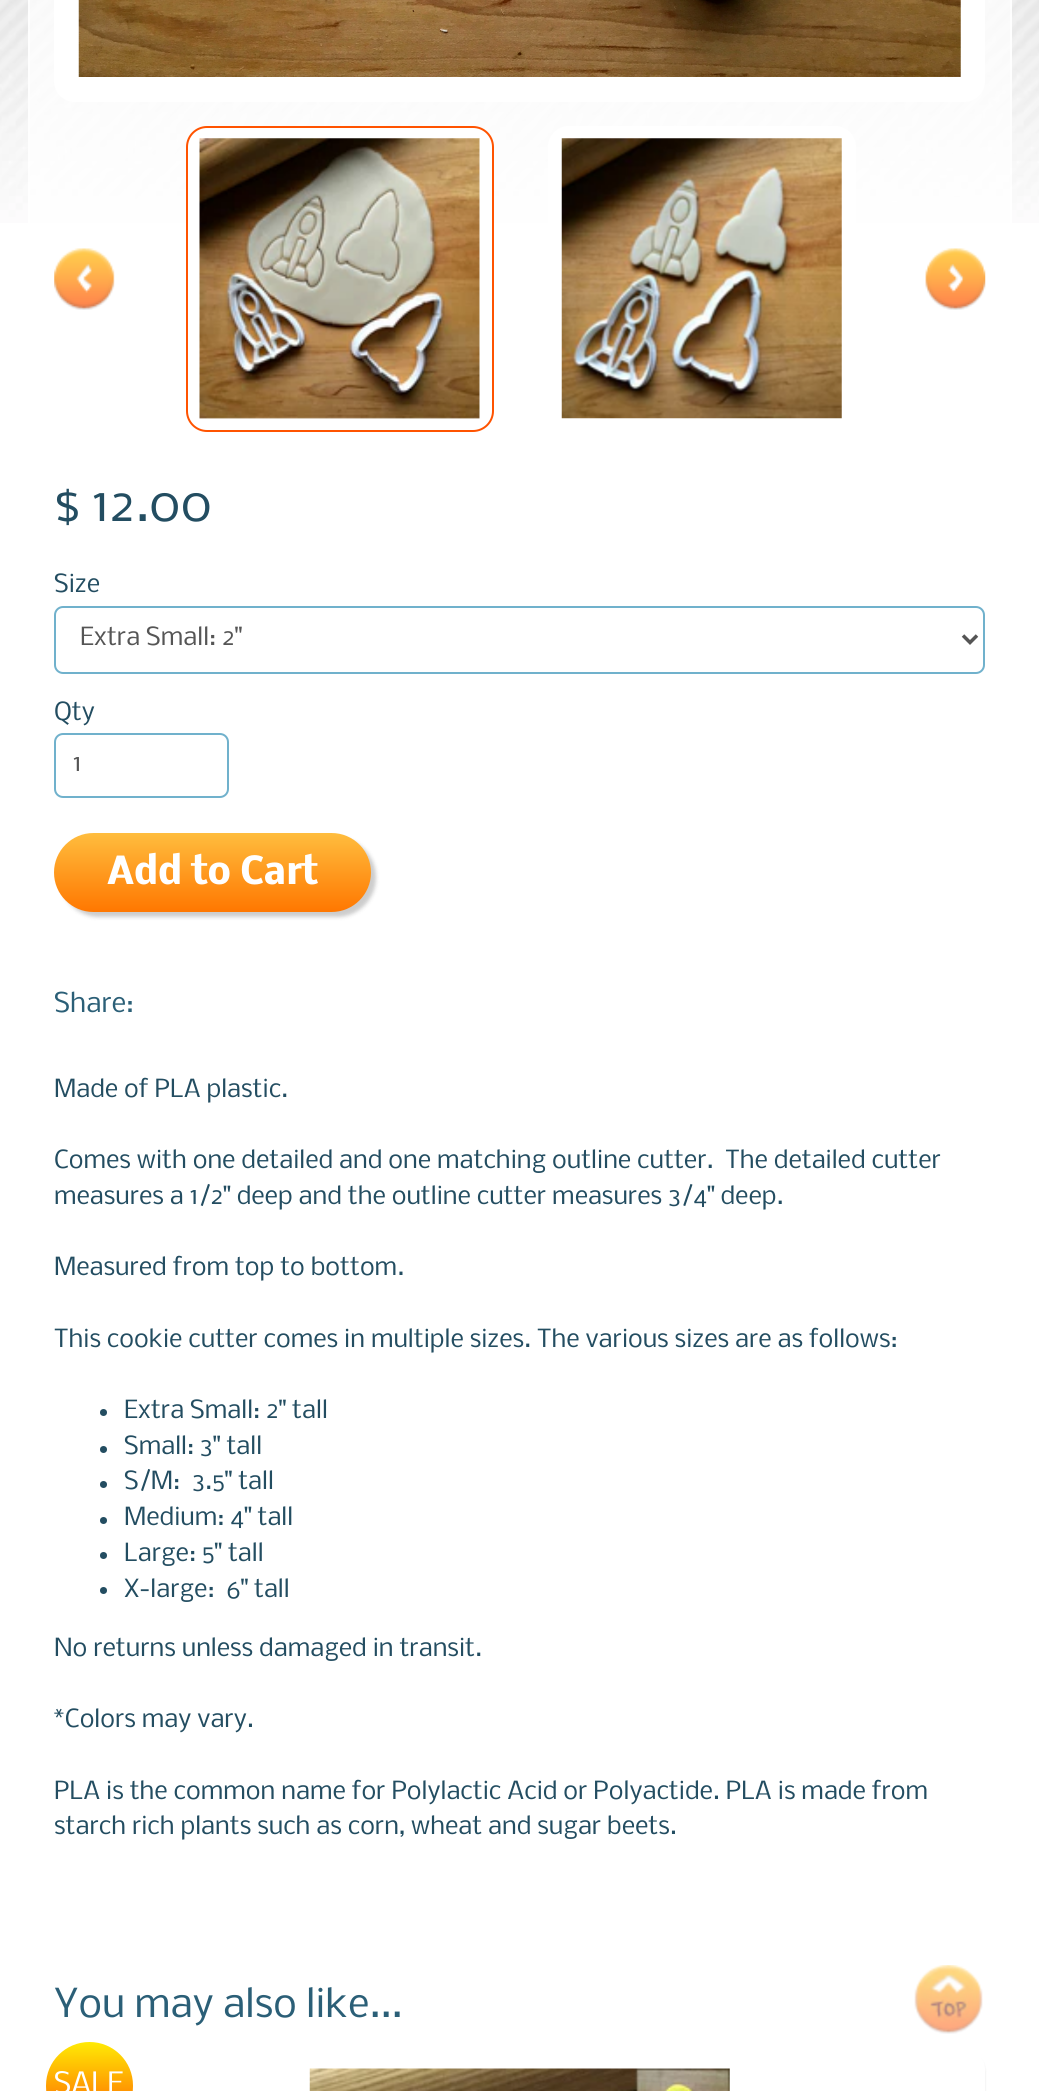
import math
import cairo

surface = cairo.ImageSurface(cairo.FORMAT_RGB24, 1039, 2091)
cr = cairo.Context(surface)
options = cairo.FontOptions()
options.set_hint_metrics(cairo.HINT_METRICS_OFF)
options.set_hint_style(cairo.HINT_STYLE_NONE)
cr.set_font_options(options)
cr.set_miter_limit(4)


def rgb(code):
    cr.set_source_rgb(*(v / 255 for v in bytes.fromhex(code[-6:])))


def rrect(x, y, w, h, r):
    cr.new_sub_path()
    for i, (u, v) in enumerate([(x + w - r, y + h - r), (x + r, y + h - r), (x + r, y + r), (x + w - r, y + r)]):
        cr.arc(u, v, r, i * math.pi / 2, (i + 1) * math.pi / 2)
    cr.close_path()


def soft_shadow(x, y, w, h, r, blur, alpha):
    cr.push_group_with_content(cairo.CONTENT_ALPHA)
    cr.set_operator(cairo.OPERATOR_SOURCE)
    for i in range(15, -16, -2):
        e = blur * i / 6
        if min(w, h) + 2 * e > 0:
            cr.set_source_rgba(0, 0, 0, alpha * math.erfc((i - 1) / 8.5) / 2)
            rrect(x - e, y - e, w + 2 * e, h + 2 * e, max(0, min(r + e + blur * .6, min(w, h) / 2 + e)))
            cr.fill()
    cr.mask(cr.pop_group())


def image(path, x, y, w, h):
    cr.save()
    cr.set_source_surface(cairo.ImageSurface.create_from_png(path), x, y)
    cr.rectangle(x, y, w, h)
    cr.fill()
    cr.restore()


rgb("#ffffff")
cr.paint()
image("img/1.png", 0, 0, 1039, 223)
cr.rectangle(29, -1, 982, 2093)
cr.set_source_rgba(1, 1, 1, 0.7)
cr.stroke()
rgb("#ffffff")
rrect(54, -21, 931, 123, 21)
cr.fill()
image("img/2.png", 78, 0, 883, 77)
rrect(187, 127, 306, 304, 20)
cr.fill_preserve()
rgb("#ff5300")
cr.stroke()
image("img/3.png", 199, 138, 281, 281)
rgb("#ffffff")
rrect(548, 126, 308, 306, 21)
cr.fill()
image("img/4.png", 561, 138, 281, 281)
image("img/5.png", 54, 248, 61, 62)
image("img/6.png", 925, 248, 61, 62)
rrect(55, 607, 929, 66, 8)
rgb("#70b1cc")
cr.stroke()
cr.new_path()
cr.move_to(963, 635.5)
cr.line_to(970, 642.5)
cr.line_to(977, 635.5)
rgb("#555555")
cr.set_line_width(3.5)
cr.stroke()
rrect(55, 734, 173, 63, 8)
rgb("#70b1cc")
cr.set_line_width(2)
cr.stroke()
rgb("#000000")
soft_shadow(60, 838, 316, 79, 39.5, 2, 0.2)
gradient = cairo.LinearGradient(213, 833, 213, 912)
gradient.add_color_stop_rgba(0, 1, 0.741, 0.243, 1)
gradient.add_color_stop_rgba(1, 1, 0.467, 0, 1)
cr.set_source(gradient)
rrect(54, 833, 317, 79, 39.5)
cr.fill()
rgb("#234d61")
cr.arc(103.5, 1412.5, 3.5, 0, 2 * math.pi)
cr.fill()
cr.arc(103.5, 1449.5, 3.5, 0, 2 * math.pi)
cr.fill()
cr.arc(103.5, 1484.5, 3.5, 0, 2 * math.pi)
cr.fill()
cr.arc(103.5, 1520.5, 3.5, 0, 2 * math.pi)
cr.fill()
cr.arc(103.5, 1555.5, 3.5, 0, 2 * math.pi)
cr.fill()
cr.arc(103.5, 1590.5, 3.5, 0, 2 * math.pi)
cr.fill()
rgb("#000000")
soft_shadow(54, 2053, 931, 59, 18, 1, 0.1)
rgb("#ffffff")
rrect(54, 2051, 931, 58, 18)
cr.fill()
gradient = cairo.LinearGradient(89, 2042, 89, 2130)
gradient.add_color_stop_rgba(0, 1, 0.918, 0.016, 1)
gradient.add_color_stop_rgba(1, 1, 0.325, 0, 1)
cr.set_source(gradient)
rrect(46, 2042, 87, 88, 43.5)
cr.fill()
image("img/7.png", 309, 2068, 421, 23)
image("img/8.png", 914, 1965, 69, 69)
cr.select_font_face("Nobile")
cr.set_font_size(47.5)
rgb("#234d61")
cr.move_to(54, 521)
cr.show_text("$ 12.00")
cr.set_font_size(23.8)
cr.move_to(54, 592)
cr.show_text("Size")
rgb("#555555")
cr.move_to(80, 645)
cr.show_text("Extra Small: 2\"")
rgb("#234d61")
cr.move_to(54, 720)
cr.show_text("Qty")
rgb("#555555")
cr.move_to(73, 771)
cr.show_text("1")
cr.select_font_face("Nobile", cairo.FONT_SLANT_NORMAL, cairo.FONT_WEIGHT_BOLD)
cr.set_font_size(35.75)
rgb("#ffffff")
cr.move_to(107, 884)
cr.show_text("Add to Cart")
cr.select_font_face("Nobile")
cr.set_font_size(26)
rgb("#2b5f77")
cr.move_to(54, 1012)
cr.show_text("Share:")
cr.set_font_size(23.8)
rgb("#234d61")
for x, y, s in [
    (54, 1097, "Made of PLA plastic."),
    (54, 1168, "Comes with one detailed and one matching outline cutter.  The detailed cutter"),
    (54, 1204, "measures a 1/2\" deep and the outline cutter measures 3/4\" deep."),
    (54, 1275, "Measured from top to bottom."),
    (54, 1347, "This cookie cutter comes in multiple sizes. The various sizes are as follows:"),
    (124, 1418, "Extra Small: 2\" tall"),
    (124, 1454, "Small: 3\" tall"),
    (124, 1489, "S/M:  3.5\" tall"),
    (124, 1525, "Medium: 4\" tall"),
    (124, 1561, "Large: 5\" tall"),
    (124, 1597, "X-large:  6\" tall"),
    (54, 1656, "No returns unless damaged in transit."),
    (54, 1727, "*Colors may vary."),
    (54, 1799, "PLA is the common name for Polylactic Acid or Polyactide. PLA is made from"),
    (54, 1834, "starch rich plants such as corn, wheat and sugar beets."),
]:
    cr.move_to(x, y)
    cr.show_text(s)
cr.set_font_size(38)
rgb("#2b5f77")
cr.move_to(54, 2017)
cr.show_text("You may also like...")
cr.set_font_size(28)
rgb("#ffffff")
cr.move_to(54, 2093)
cr.show_text("SALE")
surface.write_to_png("page.png")
